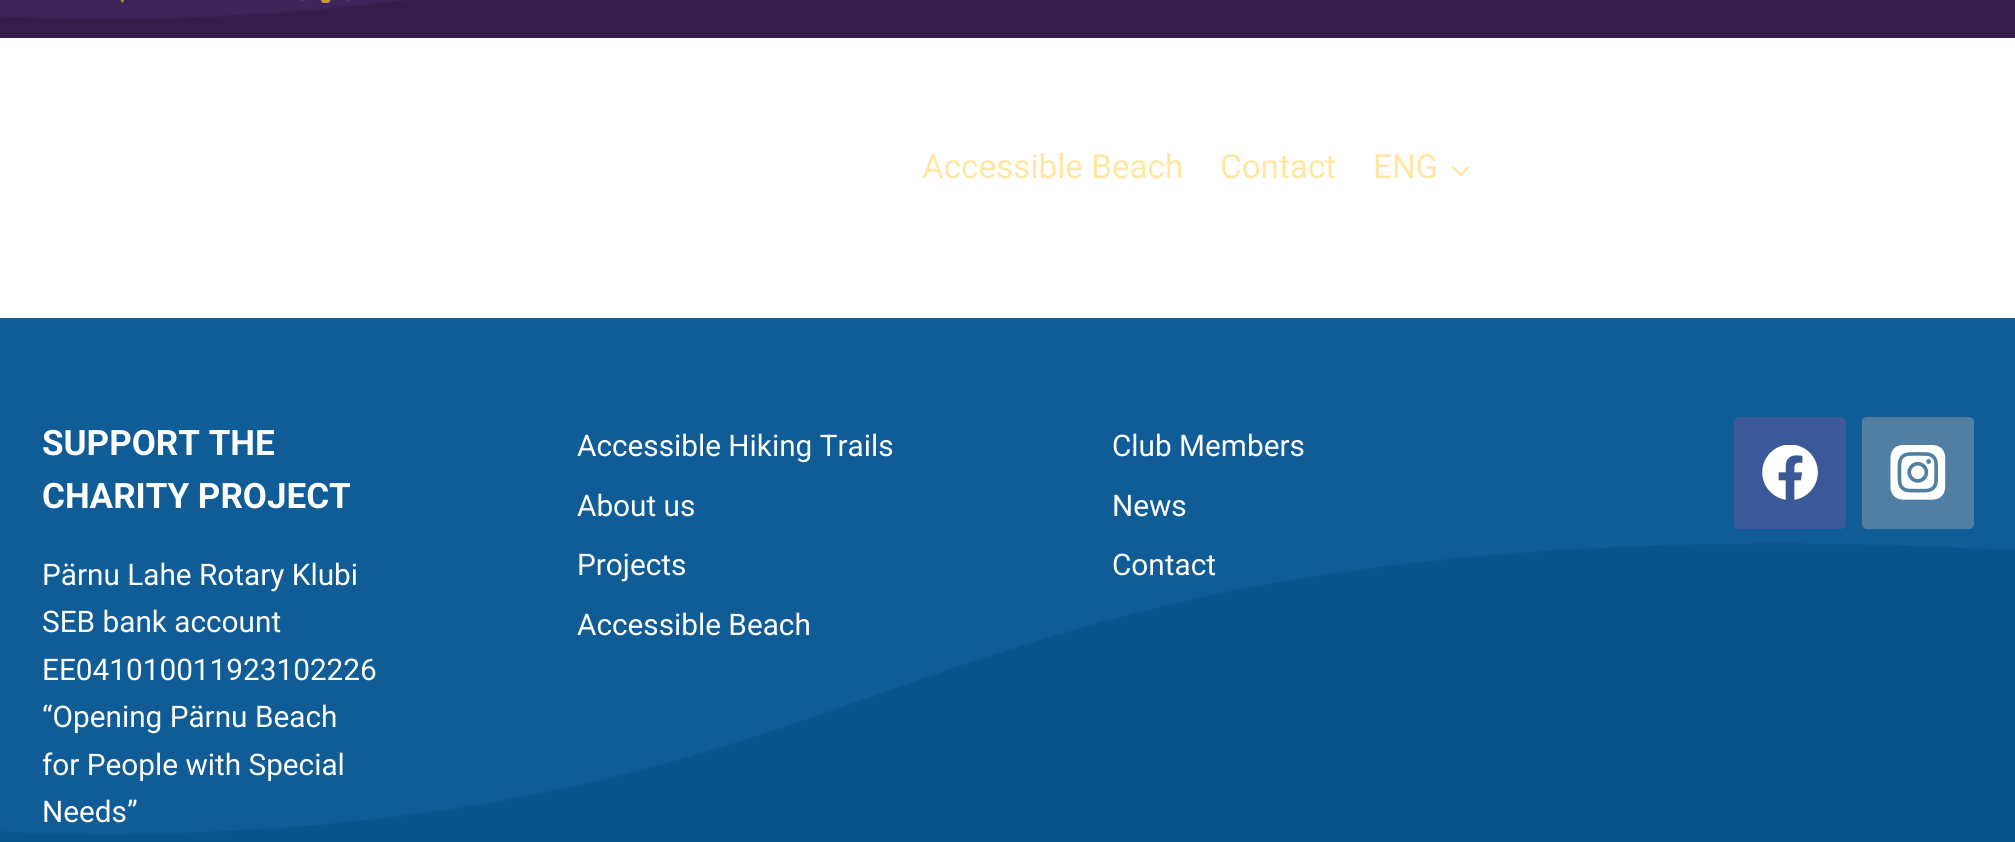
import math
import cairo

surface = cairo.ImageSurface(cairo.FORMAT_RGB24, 2015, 842)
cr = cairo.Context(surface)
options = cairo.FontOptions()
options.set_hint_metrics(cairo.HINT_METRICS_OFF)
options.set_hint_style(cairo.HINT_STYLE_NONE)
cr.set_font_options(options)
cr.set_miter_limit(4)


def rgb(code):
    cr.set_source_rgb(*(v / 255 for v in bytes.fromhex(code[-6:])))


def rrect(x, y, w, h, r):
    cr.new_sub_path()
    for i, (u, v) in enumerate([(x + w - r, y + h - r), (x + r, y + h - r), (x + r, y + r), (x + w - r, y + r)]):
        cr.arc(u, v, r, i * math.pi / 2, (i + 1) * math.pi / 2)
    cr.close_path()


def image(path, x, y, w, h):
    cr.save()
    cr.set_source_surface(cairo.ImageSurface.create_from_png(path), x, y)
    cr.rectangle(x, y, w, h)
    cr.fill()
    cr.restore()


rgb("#ffffff")
cr.paint()
image("img/1.png", 0, 0, 2015, 38)
image("img/2.png", 120, 0, 231, 3)
image("img/3.png", 1451, 166, 19, 11)
image("img/4.png", 0, 318, 2015, 524)
rgb("#3b5998")
rrect(1734, 417, 112, 112, 5)
cr.fill()
image("img/5.png", 1762, 445, 56, 55)
rgb("#517fa4")
rrect(1862, 417, 112, 112, 5)
cr.fill()
image("img/6.png", 1890, 445, 56, 55)
cr.select_font_face("Roboto")
cr.set_font_size(33.25)
rgb("#ffe7a3")
for x, y, s in [
    (922, 178, "Accessible Beach"),
    (1220, 178, "Contact"),
    (1373, 178, "ENG"),
]:
    cr.move_to(x, y)
    cr.show_text(s)
cr.select_font_face("Roboto", cairo.FONT_SLANT_NORMAL, cairo.FONT_WEIGHT_BOLD)
cr.set_font_size(35)
rgb("#ffffff")
cr.move_to(42, 455)
cr.show_text("SUPPORT THE")
cr.move_to(42, 508)
cr.show_text("CHARITY PROJECT")
cr.select_font_face("Roboto")
cr.set_font_size(29.75)
for x, y, s in [
    (42, 585, "Pärnu Lahe Rotary Klubi"),
    (42, 632, "SEB bank account"),
    (42, 680, "EE041010011923102226"),
    (42, 727, "“Opening Pärnu Beach"),
    (42, 775, "for People with Special"),
    (42, 822, "Needs”"),
    (577, 456, "Accessible Hiking Trails"),
    (577, 516, "About us"),
    (577, 575, "Projects"),
    (577, 635, "Accessible Beach"),
    (1112, 456, "Club Members"),
    (1112, 516, "News"),
    (1112, 575, "Contact"),
]:
    cr.move_to(x, y)
    cr.show_text(s)
surface.write_to_png("page.png")
